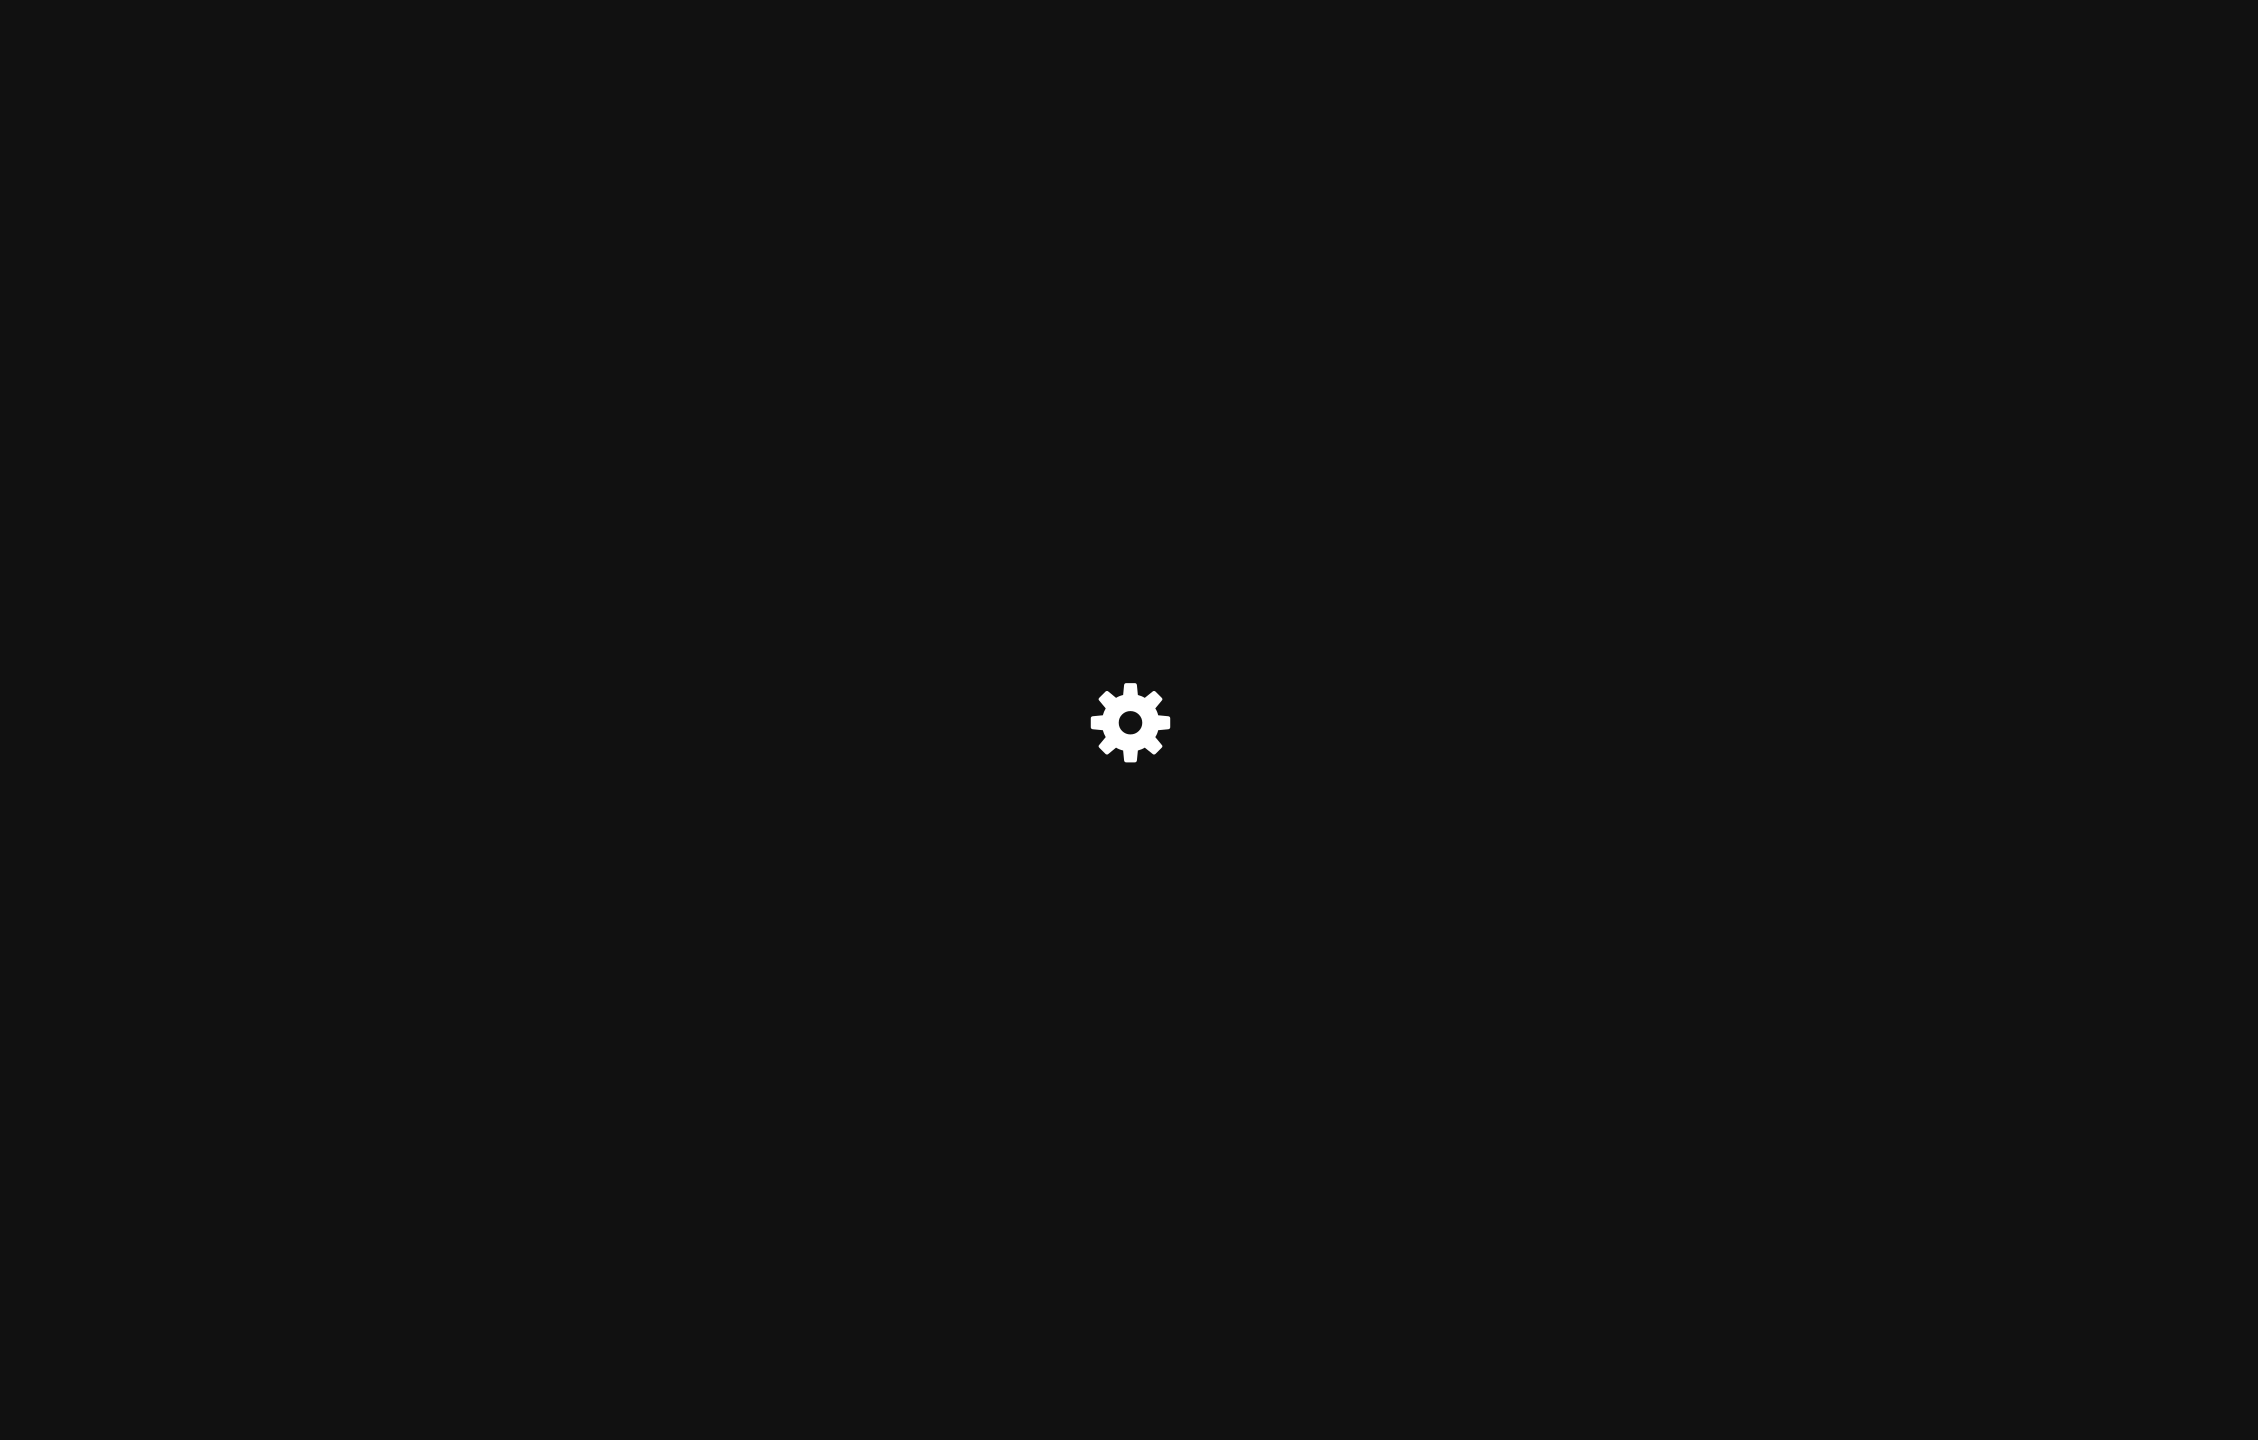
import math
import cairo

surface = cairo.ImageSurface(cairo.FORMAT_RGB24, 2258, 1440)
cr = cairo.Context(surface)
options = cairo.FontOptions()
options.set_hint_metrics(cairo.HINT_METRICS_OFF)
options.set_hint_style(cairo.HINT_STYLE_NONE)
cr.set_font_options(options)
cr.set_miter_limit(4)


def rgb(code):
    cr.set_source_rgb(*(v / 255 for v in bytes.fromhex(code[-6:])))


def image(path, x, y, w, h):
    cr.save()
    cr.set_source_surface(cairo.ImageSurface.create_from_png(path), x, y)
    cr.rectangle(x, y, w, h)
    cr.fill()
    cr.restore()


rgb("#111111")
cr.paint()
image("img/1.png", 1090, 683, 81, 80)
surface.write_to_png("page.png")
